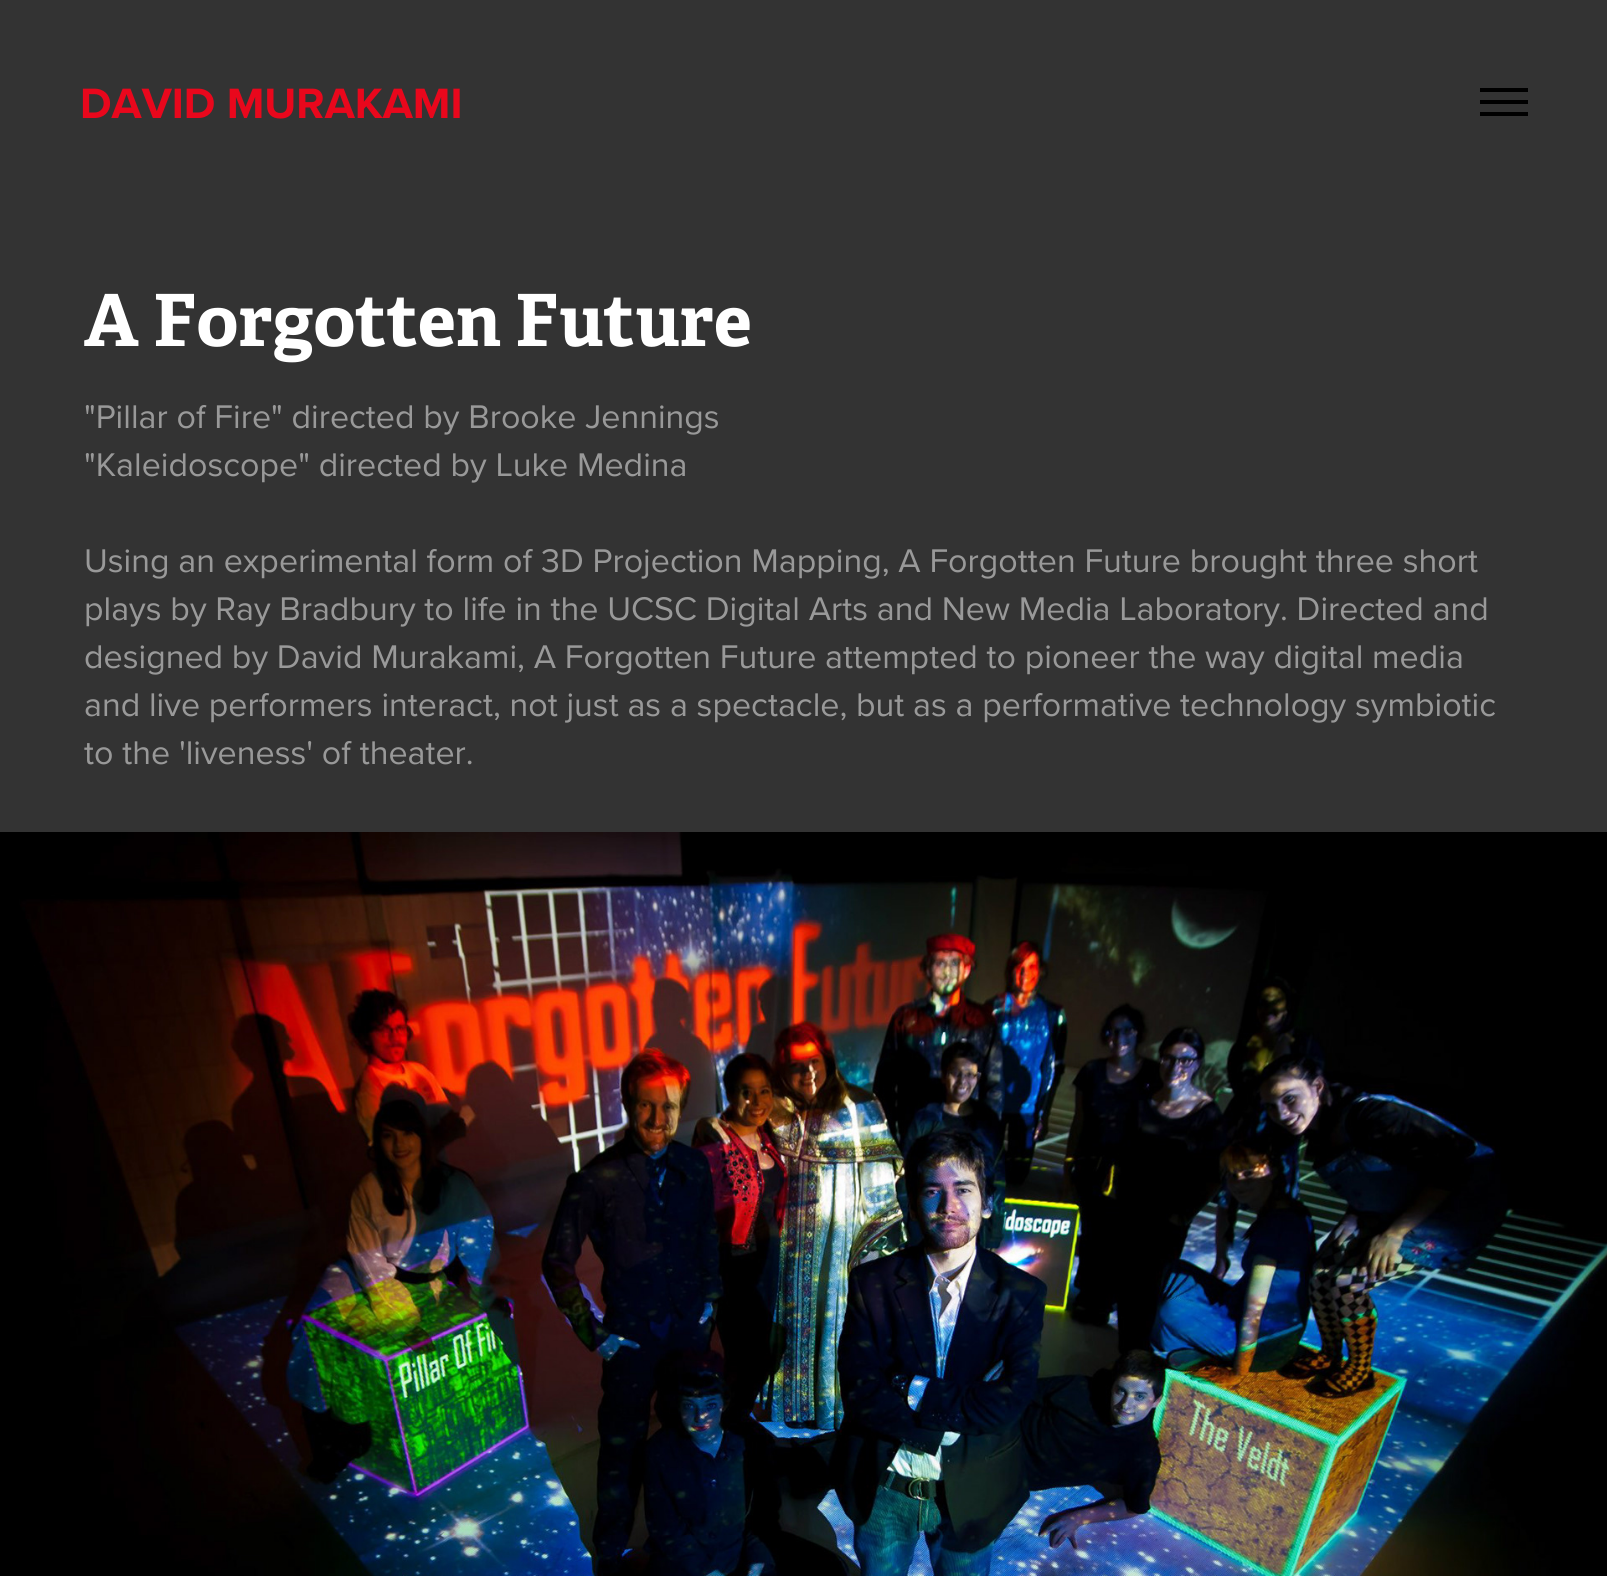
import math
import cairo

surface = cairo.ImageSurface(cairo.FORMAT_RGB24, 1607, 1576)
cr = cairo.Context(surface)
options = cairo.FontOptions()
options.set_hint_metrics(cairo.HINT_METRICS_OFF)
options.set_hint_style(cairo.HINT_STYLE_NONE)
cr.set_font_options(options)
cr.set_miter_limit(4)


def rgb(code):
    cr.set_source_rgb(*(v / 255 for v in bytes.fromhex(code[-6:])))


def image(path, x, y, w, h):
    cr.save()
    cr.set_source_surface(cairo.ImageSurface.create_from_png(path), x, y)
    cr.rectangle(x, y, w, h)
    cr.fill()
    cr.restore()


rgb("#333333")
cr.paint()
for x, y, w, h, color in [
    (1480, 88, 48, 4, "#000000"),
    (1480, 100, 48, 4, "#000000"),
    (1480, 112, 48, 4, "#000000"),
]:
    rgb(color)
    cr.rectangle(x, y, w, h)
    cr.fill()
image("img/1.png", 0, 832, 1607, 744)
cr.select_font_face("Proxima Nova", cairo.FONT_SLANT_NORMAL, cairo.FONT_WEIGHT_BOLD)
cr.set_font_size(44)
rgb("#e9071c")
cr.move_to(80, 118)
cr.show_text("DAVID MURAKAMI")
cr.select_font_face("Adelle", cairo.FONT_SLANT_NORMAL, cairo.FONT_WEIGHT_BOLD)
cr.set_font_size(72)
rgb("#ffffff")
cr.move_to(84, 346)
cr.show_text("A Forgotten Future")
cr.select_font_face("Proxima Nova")
cr.set_font_size(34)
rgb("#999999")
for x, y, s in [
    (84, 428, "\"Pillar of Fire\" directed by Brooke Jennings"),
    (84, 476, "\"Kaleidoscope\" directed by Luke Medina"),
    (84, 572, "Using an experimental form of 3D Projection Mapping, A Forgotten Future brought three short"),
    (84, 620, "plays by Ray Bradbury to life in the UCSC Digital Arts and New Media Laboratory. Directed and"),
    (84, 668, "designed by David Murakami, A Forgotten Future attempted to pioneer the way digital media"),
    (84, 716, "and live performers interact, not just as a spectacle, but as a performative technology symbiotic"),
    (84, 764, "to the 'liveness' of theater."),
]:
    cr.move_to(x, y)
    cr.show_text(s)
surface.write_to_png("page.png")
